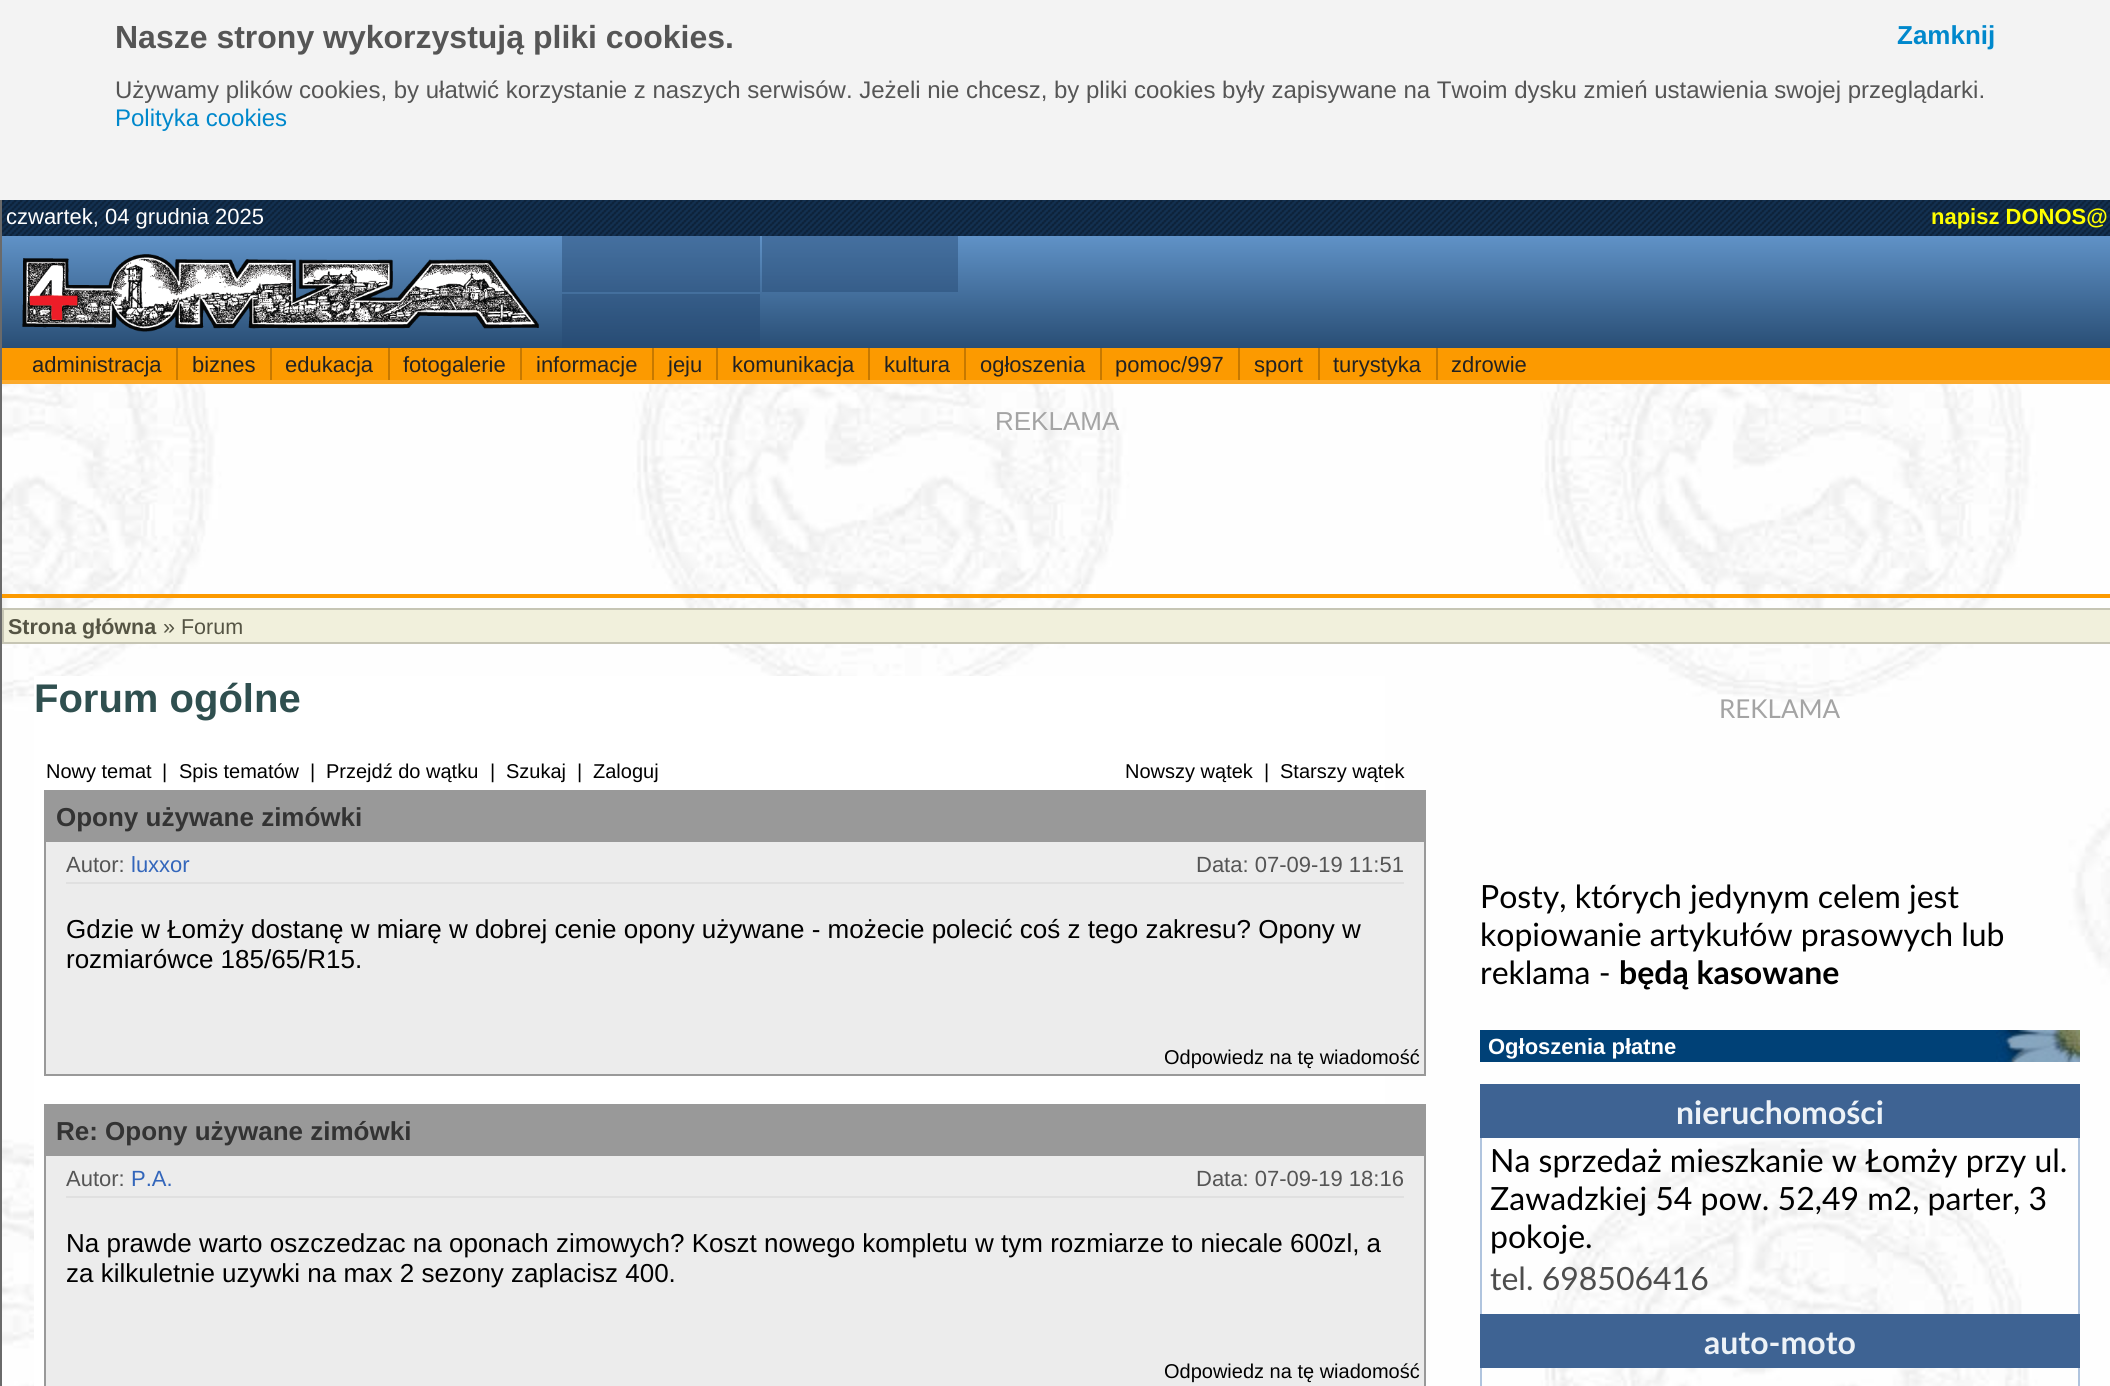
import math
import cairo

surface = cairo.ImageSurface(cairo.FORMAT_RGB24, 2110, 1386)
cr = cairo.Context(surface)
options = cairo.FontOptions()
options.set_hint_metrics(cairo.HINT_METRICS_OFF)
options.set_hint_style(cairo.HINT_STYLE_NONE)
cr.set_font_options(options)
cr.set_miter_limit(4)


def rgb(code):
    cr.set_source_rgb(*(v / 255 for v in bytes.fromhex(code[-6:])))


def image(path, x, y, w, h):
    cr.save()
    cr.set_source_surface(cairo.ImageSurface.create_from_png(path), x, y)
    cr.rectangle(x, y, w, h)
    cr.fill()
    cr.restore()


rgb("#ffffff")
cr.paint()
image("img/1.png", 2, 384, 2108, 1002)
rgb("#f3f3f3")
cr.rectangle(0, 0, 2110, 200)
cr.fill()
image("img/2.png", 2, 380, 2108, 4)
rgb("#6a6a6a")
cr.rectangle(0, 200, 2, 1186)
cr.fill()
image("img/3.png", 2, 200, 2108, 36)
gradient = cairo.LinearGradient(1057, 236, 1057, 348)
gradient.add_color_stop_rgba(0, 0.376, 0.573, 0.78, 1)
gradient.add_color_stop_rgba(1, 0.161, 0.306, 0.459, 1)
cr.set_source(gradient)
cr.rectangle(2, 236, 2108, 112)
cr.fill()
image("img/4.png", 22, 254, 517, 78)
cr.set_source_rgba(0.145, 0.282, 0.443, 0.46)
cr.rectangle(562, 236, 198, 56)
cr.fill()
cr.rectangle(762, 236, 196, 56)
cr.fill()
cr.rectangle(562, 294, 198, 54)
cr.fill()
rgb("#fc9a00")
cr.rectangle(2, 348, 2108, 32)
cr.fill()
rgb("#c77900")
cr.rectangle(176, 348, 2, 32)
cr.rectangle(270, 348, 2, 32)
cr.rectangle(388, 348, 2, 32)
cr.rectangle(520, 348, 2, 32)
cr.rectangle(652, 348, 2, 32)
cr.rectangle(716, 348, 2, 32)
cr.rectangle(868, 348, 2, 32)
cr.rectangle(964, 348, 2, 32)
cr.rectangle(1100, 348, 2, 32)
cr.rectangle(1238, 348, 2, 32)
cr.rectangle(1318, 348, 2, 32)
cr.rectangle(1436, 348, 2, 32)
cr.fill()
rgb("#fc9a00")
cr.rectangle(2, 594, 2108, 4)
cr.fill()
rgb("#f1f0dc")
cr.rectangle(3, 609, 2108, 34)
cr.fill_preserve()
rgb("#c6c5b4")
cr.stroke()
rgb("#ffffff")
cr.rectangle(34, 676, 1351, 710)
cr.fill()
cr.rectangle(45, 791, 1380, 284)
rgb("#999999")
cr.stroke()
for x, y, w, h, color in [
    (46, 792, 1378, 50, "#999999"),
    (46, 842, 1378, 232, "#ececec"),
    (66, 882, 1338, 2, "#e0e0e0"),
]:
    rgb(color)
    cr.rectangle(x, y, w, h)
    cr.fill()
cr.rectangle(45, 1105, 1380, 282)
rgb("#999999")
cr.stroke()
for x, y, w, h, color in [
    (46, 1106, 1378, 50, "#999999"),
    (46, 1156, 1378, 230, "#ececec"),
    (66, 1196, 1338, 2, "#e0e0e0"),
    (1480, 1030, 516, 32, "#004177"),
]:
    rgb(color)
    cr.rectangle(x, y, w, h)
    cr.fill()
image("img/5.png", 1996, 1030, 84, 32)
cr.rectangle(1481, 1085, 598, 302)
rgb("#b0c4de")
cr.stroke()
rgb("#3e6393")
cr.rectangle(1480, 1084, 600, 54)
cr.fill()
cr.rectangle(1480, 1314, 600, 54)
cr.fill()
cr.select_font_face("Liberation Sans", cairo.FONT_SLANT_NORMAL, cairo.FONT_WEIGHT_BOLD)
cr.set_font_size(32)
rgb("#555555")
cr.move_to(115, 48)
cr.show_text("Nasze strony wykorzystują pliki cookies.")
cr.set_font_size(26)
rgb("#0088cc")
cr.move_to(1897, 44)
cr.show_text("Zamknij")
cr.select_font_face("Liberation Sans")
cr.set_font_size(24)
rgb("#555555")
cr.move_to(115, 98)
cr.show_text("Używamy plików cookies, by ułatwić korzystanie z naszych serwisów. Jeżeli nie chcesz, by pliki cookies były zapisywane na Twoim dysku zmień ustawienia swojej przeglądarki.")
rgb("#0088cc")
cr.move_to(115, 126)
cr.show_text("Polityka cookies")
cr.set_font_size(22)
rgb("#ffffff")
cr.move_to(6, 224)
cr.show_text("czwartek, 04 grudnia 2025")
cr.select_font_face("Liberation Sans", cairo.FONT_SLANT_NORMAL, cairo.FONT_WEIGHT_BOLD)
rgb("#ffff00")
cr.move_to(1931, 224)
cr.show_text("napisz DONOS@")
cr.select_font_face("Liberation Sans")
rgb("#222222")
for x, y, s in [
    (32, 372, "administracja"),
    (192, 372, "biznes"),
    (285, 372, "edukacja"),
    (403, 372, "fotogalerie"),
    (536, 372, "informacje"),
    (668, 372, "jeju"),
    (732, 372, "komunikacja"),
    (884, 372, "kultura"),
    (980, 372, "ogłoszenia"),
    (1115, 372, "pomoc/997"),
    (1254, 372, "sport"),
    (1333, 372, "turystyka"),
    (1451, 372, "zdrowie"),
]:
    cr.move_to(x, y)
    cr.show_text(s)
cr.set_font_size(26)
rgb("#a4a4a4")
cr.move_to(995, 430)
cr.show_text("REKLAMA")
cr.select_font_face("Liberation Sans", cairo.FONT_SLANT_NORMAL, cairo.FONT_WEIGHT_BOLD)
cr.set_font_size(21.5)
rgb("#555444")
cr.move_to(8, 634)
cr.show_text("Strona główna")
cr.select_font_face("Liberation Sans")
cr.move_to(163, 634)
cr.show_text("» Forum")
cr.select_font_face("Liberation Sans", cairo.FONT_SLANT_NORMAL, cairo.FONT_WEIGHT_BOLD)
cr.set_font_size(40)
rgb("#2f4f4f")
cr.move_to(34, 712)
cr.show_text("Forum ogólne")
cr.select_font_face("Liberation Sans")
cr.set_font_size(20)
rgb("#000000")
for x, y, s in [
    (46, 778, "Nowy temat"),
    (162, 778, "|"),
    (179, 778, "Spis tematów"),
    (310, 778, "|"),
    (326, 778, "Przejdź do wątku"),
    (490, 778, "|"),
    (506, 778, "Szukaj"),
    (577, 778, "|"),
    (593, 778, "Zaloguj"),
    (1125, 778, "Nowszy wątek"),
    (1264, 778, "|"),
    (1280, 778, "Starszy wątek"),
]:
    cr.move_to(x, y)
    cr.show_text(s)
cr.select_font_face("Liberation Sans", cairo.FONT_SLANT_NORMAL, cairo.FONT_WEIGHT_BOLD)
cr.set_font_size(26)
rgb("#333333")
cr.move_to(56, 826)
cr.show_text("Opony używane zimówki")
cr.select_font_face("Liberation Sans")
cr.set_font_size(22)
rgb("#555555")
cr.move_to(66, 872)
cr.show_text("Autor:")
rgb("#3366bb")
cr.move_to(131, 872)
cr.show_text("luxxor")
rgb("#555555")
cr.move_to(1196, 872)
cr.show_text("Data: 07-09-19 11:51")
cr.set_font_size(26)
rgb("#000000")
cr.move_to(66, 938)
cr.show_text("Gdzie w Łomży dostanę w miarę w dobrej cenie opony używane - możecie polecić coś z tego zakresu? Opony w")
cr.move_to(66, 968)
cr.show_text("rozmiarówce 185/65/R15.")
cr.set_font_size(20)
cr.move_to(1164, 1064)
cr.show_text("Odpowiedz na tę wiadomość")
cr.select_font_face("Liberation Sans", cairo.FONT_SLANT_NORMAL, cairo.FONT_WEIGHT_BOLD)
cr.set_font_size(26)
rgb("#333333")
cr.move_to(56, 1140)
cr.show_text("Re: Opony używane zimówki")
cr.select_font_face("Liberation Sans")
cr.set_font_size(22)
rgb("#555555")
cr.move_to(66, 1186)
cr.show_text("Autor:")
rgb("#3366bb")
cr.move_to(131, 1186)
cr.show_text("P.A.")
rgb("#555555")
cr.move_to(1196, 1186)
cr.show_text("Data: 07-09-19 18:16")
cr.set_font_size(26)
rgb("#000000")
cr.move_to(66, 1252)
cr.show_text("Na prawde warto oszczedzac na oponach zimowych? Koszt nowego kompletu w tym rozmiarze to niecale 600zl, a")
cr.move_to(66, 1282)
cr.show_text("za kilkuletnie uzywki na max 2 sezony zaplacisz 400.")
cr.set_font_size(20)
cr.move_to(1164, 1378)
cr.show_text("Odpowiedz na tę wiadomość")
cr.select_font_face("Lato")
cr.set_font_size(26)
rgb("#a4a4a4")
cr.move_to(1719, 718)
cr.show_text("REKLAMA")
cr.set_font_size(32)
rgb("#000000")
for x, y, s in [
    (1480, 908, "Posty, których jedynym celem jest"),
    (1480, 946, "kopiowanie artykułów prasowych lub"),
    (1480, 984, "reklama -"),
]:
    cr.move_to(x, y)
    cr.show_text(s)
cr.select_font_face("Lato", cairo.FONT_SLANT_NORMAL, cairo.FONT_WEIGHT_BOLD)
cr.move_to(1619, 984)
cr.show_text("będą kasowane")
cr.select_font_face("Liberation Sans", cairo.FONT_SLANT_NORMAL, cairo.FONT_WEIGHT_BOLD)
cr.set_font_size(22)
rgb("#ffffff")
cr.move_to(1488, 1054)
cr.show_text("Ogłoszenia płatne")
cr.select_font_face("Lato", cairo.FONT_SLANT_NORMAL, cairo.FONT_WEIGHT_BOLD)
cr.set_font_size(32)
rgb("#edf2f7")
cr.move_to(1676, 1124)
cr.show_text("nieruchomości")
cr.select_font_face("Lato")
rgb("#000000")
for x, y, s in [
    (1490, 1172, "Na sprzedaż mieszkanie w Łomży przy ul."),
    (1490, 1210, "Zawadzkiej 54 pow. 52,49 m2, parter, 3"),
    (1490, 1248, "pokoje."),
]:
    cr.move_to(x, y)
    cr.show_text(s)
rgb("#4d4d4d")
cr.move_to(1490, 1290)
cr.show_text("tel. 698506416")
cr.select_font_face("Lato", cairo.FONT_SLANT_NORMAL, cairo.FONT_WEIGHT_BOLD)
rgb("#edf2f7")
cr.move_to(1704, 1354)
cr.show_text("auto-moto")
surface.write_to_png("page.png")
